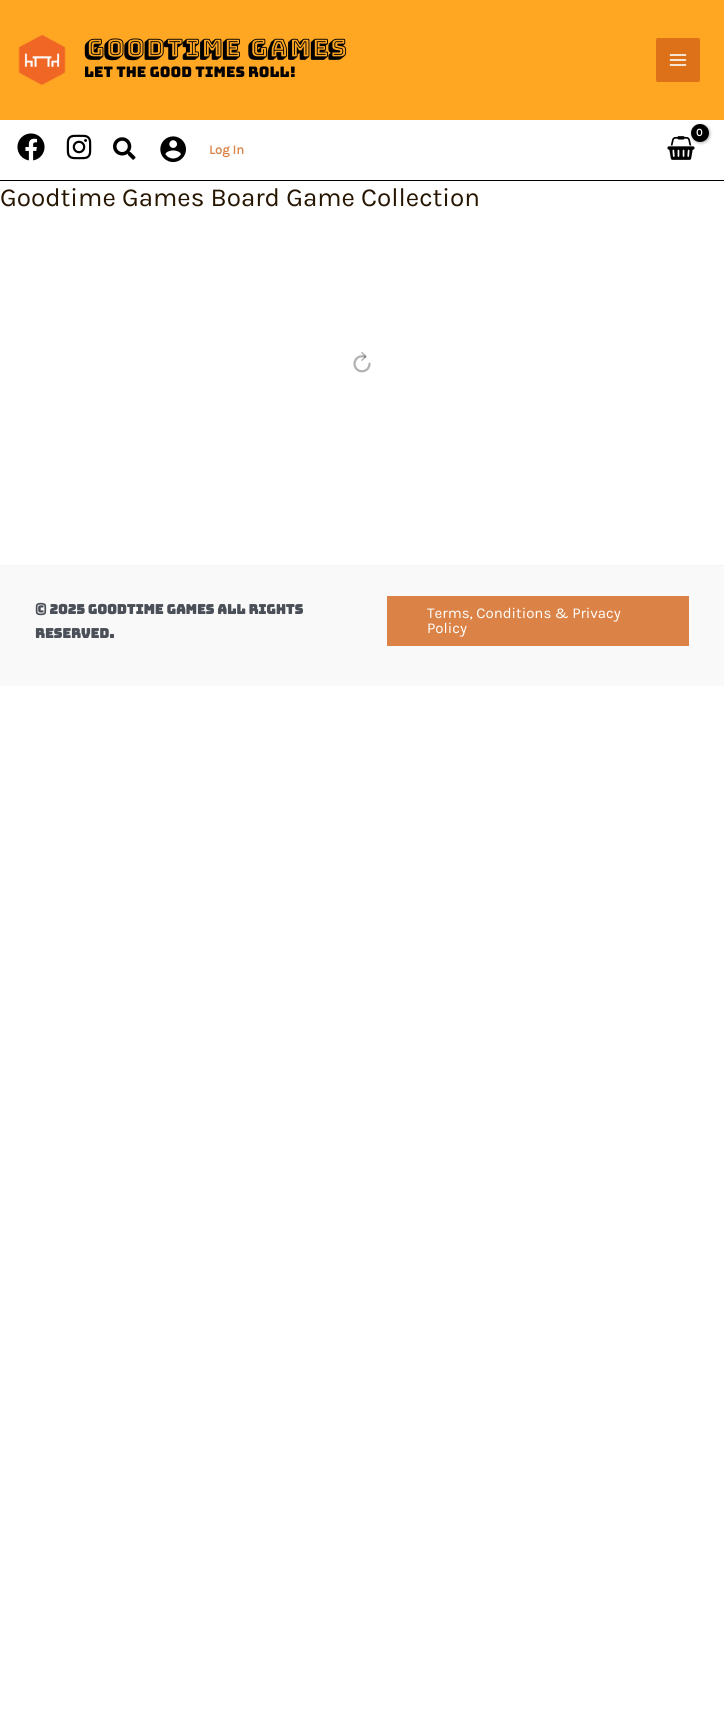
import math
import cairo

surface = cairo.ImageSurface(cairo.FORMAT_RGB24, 724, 1725)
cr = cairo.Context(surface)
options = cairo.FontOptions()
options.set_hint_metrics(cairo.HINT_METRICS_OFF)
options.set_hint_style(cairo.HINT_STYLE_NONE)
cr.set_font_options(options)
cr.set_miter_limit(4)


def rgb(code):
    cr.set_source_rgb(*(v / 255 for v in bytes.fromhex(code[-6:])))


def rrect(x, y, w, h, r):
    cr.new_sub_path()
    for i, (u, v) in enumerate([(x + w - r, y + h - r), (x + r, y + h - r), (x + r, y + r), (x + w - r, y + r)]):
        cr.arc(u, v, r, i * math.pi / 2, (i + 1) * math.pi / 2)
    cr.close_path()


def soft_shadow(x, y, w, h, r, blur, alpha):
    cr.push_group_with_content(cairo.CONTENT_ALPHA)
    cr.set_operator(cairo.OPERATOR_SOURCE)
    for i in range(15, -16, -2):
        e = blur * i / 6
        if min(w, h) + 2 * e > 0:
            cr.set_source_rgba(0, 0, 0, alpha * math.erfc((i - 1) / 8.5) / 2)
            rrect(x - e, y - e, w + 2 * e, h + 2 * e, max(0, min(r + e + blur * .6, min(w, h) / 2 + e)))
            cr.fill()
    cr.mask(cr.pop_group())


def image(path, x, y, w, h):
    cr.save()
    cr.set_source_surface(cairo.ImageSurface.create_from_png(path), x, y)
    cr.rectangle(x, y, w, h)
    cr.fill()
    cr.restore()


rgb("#ffffff")
cr.paint()
rgb("#ffa623")
cr.rectangle(0, 0, 724, 120)
cr.fill()
image("img/1.png", 18, 35, 48, 50)
rgb("#dc711a")
rrect(656, 38, 44, 44, 2)
cr.fill()
image("img/2.png", 669, 54, 18, 12)
rgb("#000000")
cr.rectangle(0, 180, 724, 1)
cr.fill()
image("img/3.png", 667, 136, 28, 24)
rgb("#000000")
soft_shadow(692, 125, 18, 18, 9, 1.5, 0.3)
rgb("#000000")
cr.arc(700, 133, 9, 0, 2 * math.pi)
cr.fill()
image("img/4.png", 17, 133, 28, 28)
image("img/5.png", 66, 134, 26, 26)
image("img/6.png", 113, 137, 23, 23)
image("img/7.png", 160, 136, 26, 27)
image("img/8.png", 353, 352, 18, 21)
for x, y, w, h, color in [
    (0, 566, 724, 120, "#f9f9f9"),
    (0, 565, 724, 1, "#f2f5f7"),
    (387, 596, 302, 50, "#db8347"),
]:
    rgb(color)
    cr.rectangle(x, y, w, h)
    cr.fill()
cr.select_font_face("Bungee Shade", cairo.FONT_SLANT_NORMAL, cairo.FONT_WEIGHT_BOLD)
cr.set_font_size(24)
rgb("#000000")
cr.move_to(84, 57)
cr.show_text("Goodtime Games")
cr.select_font_face("Bungee")
cr.set_font_size(14.5)
cr.move_to(84, 77)
cr.show_text("Let the good times roll!")
cr.select_font_face("Karla", cairo.FONT_SLANT_NORMAL, cairo.FONT_WEIGHT_BOLD)
cr.set_font_size(11)
rgb("#ffffff")
cr.move_to(696, 136)
cr.show_text("0")
cr.set_font_size(13)
rgb("#dc8449")
cr.move_to(209, 154)
cr.show_text("Log In")
cr.select_font_face("Karla")
cr.set_font_size(26)
rgb("#261500")
cr.move_to(0, 206)
cr.show_text("Goodtime Games Board Game Collection")
cr.select_font_face("Bungee", cairo.FONT_SLANT_NORMAL, cairo.FONT_WEIGHT_BOLD)
cr.set_font_size(13.3)
rgb("#4b4f58")
cr.move_to(35, 614)
cr.show_text("© 2025 Goodtime Games All Rights")
cr.move_to(35, 638)
cr.show_text("Reserved.")
cr.select_font_face("Karla")
cr.set_font_size(15)
rgb("#ffffff")
cr.move_to(427, 618)
cr.show_text("Terms, Conditions & Privacy")
cr.move_to(427, 633)
cr.show_text("Policy")
surface.write_to_png("page.png")
